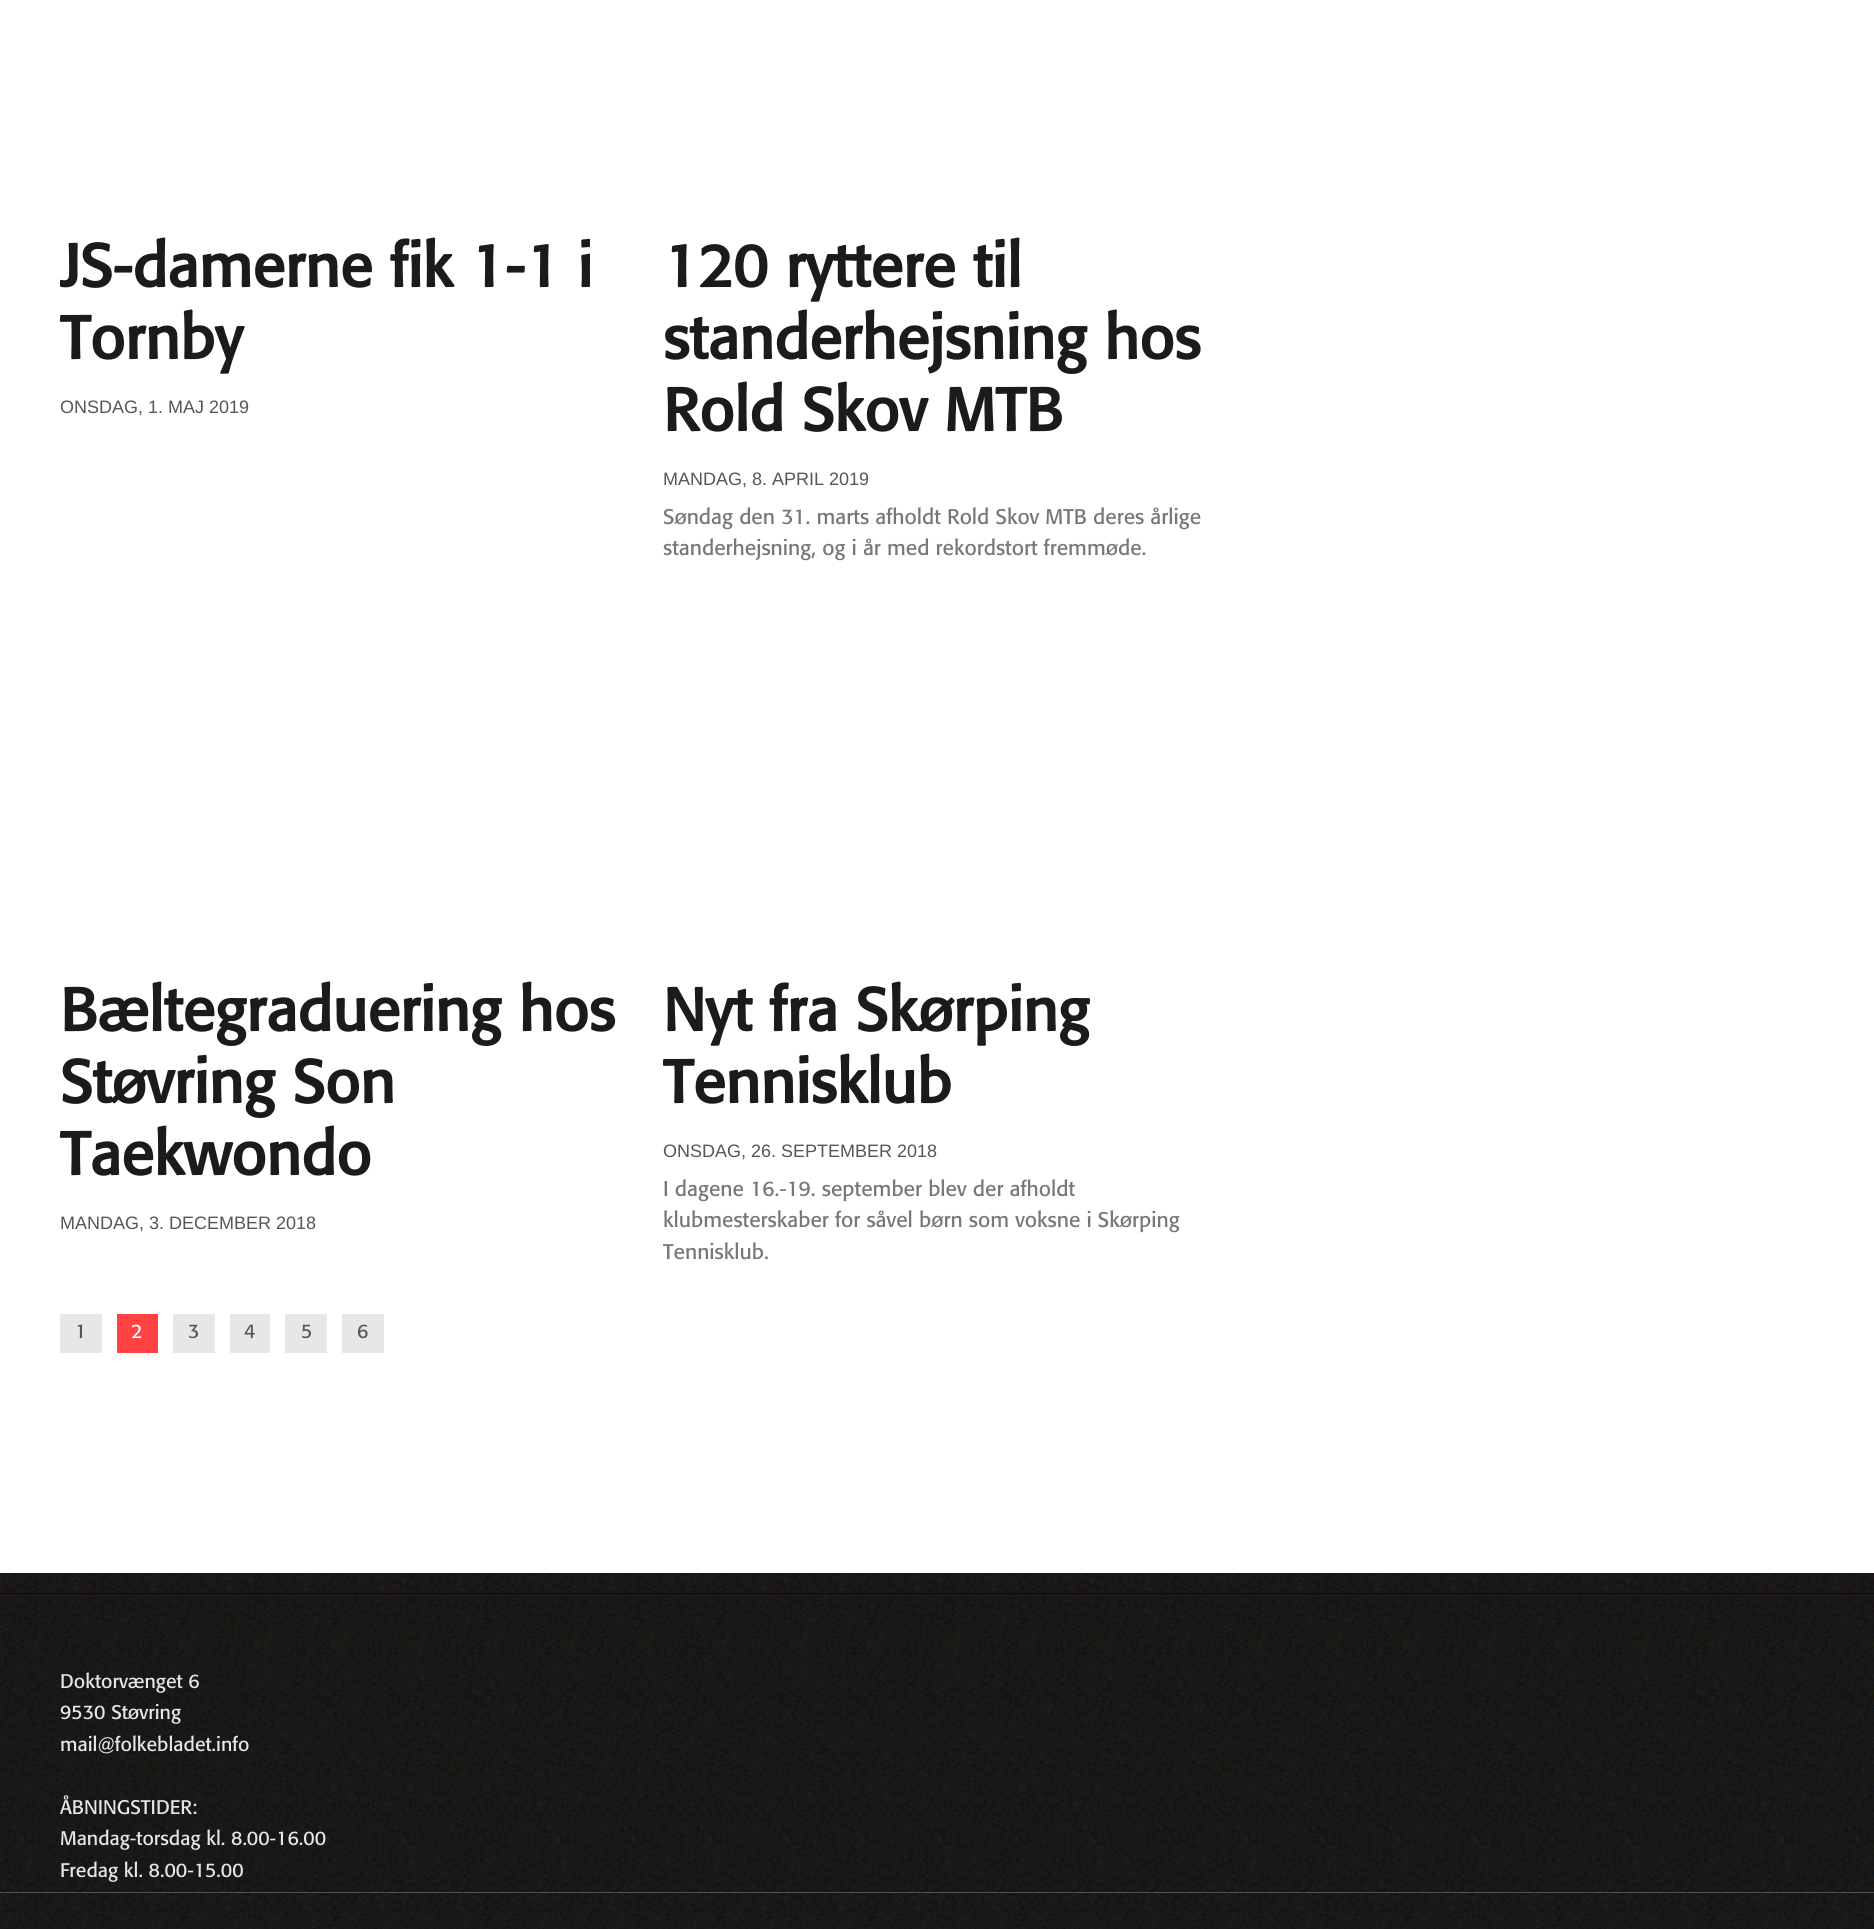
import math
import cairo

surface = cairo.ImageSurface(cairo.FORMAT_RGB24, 1874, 1929)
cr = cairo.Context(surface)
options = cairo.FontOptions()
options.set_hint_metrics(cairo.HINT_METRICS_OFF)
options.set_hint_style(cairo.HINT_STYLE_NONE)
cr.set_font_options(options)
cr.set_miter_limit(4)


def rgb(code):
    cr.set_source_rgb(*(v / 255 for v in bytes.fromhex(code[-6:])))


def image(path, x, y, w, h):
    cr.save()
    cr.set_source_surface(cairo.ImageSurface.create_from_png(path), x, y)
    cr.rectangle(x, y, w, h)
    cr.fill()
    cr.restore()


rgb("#ffffff")
cr.paint()
for x, y, w, h, color in [
    (60, 1314, 42, 39, "#e7e7e7"),
    (117, 1314, 41, 39, "#ff4343"),
    (173, 1314, 42, 39, "#e7e7e7"),
    (230, 1314, 40, 39, "#e7e7e7"),
    (285, 1314, 42, 39, "#e7e7e7"),
    (342, 1314, 42, 39, "#e7e7e7"),
]:
    rgb(color)
    cr.rectangle(x, y, w, h)
    cr.fill()
image("img/1.png", 0, 1573, 1874, 20)
rgb("#0c0c0b")
cr.rectangle(0, 1593, 1874, 1)
cr.fill()
image("img/2.png", 0, 1594, 1874, 299)
rgb("#1d181a")
cr.rectangle(0, 1595, 1874, 2)
cr.fill()
image("img/3.png", 0, 1892, 1874, 37)
cr.save()
cr.rectangle(60, 0, 557, 431)
cr.clip()
cr.select_font_face("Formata", cairo.FONT_SLANT_NORMAL, cairo.FONT_WEIGHT_BOLD)
cr.set_font_size(60)
rgb("#1b1b1b")
cr.move_to(60, 287)
cr.show_text("JS-damerne fik 1-1 i")
cr.restore()
cr.select_font_face("Formata", cairo.FONT_SLANT_NORMAL, cairo.FONT_WEIGHT_BOLD)
cr.set_font_size(60)
rgb("#1b1b1b")
cr.move_to(60, 359)
cr.show_text("Tornby")
cr.select_font_face("Liberation Sans")
cr.set_font_size(18)
rgb("#565656")
cr.move_to(60, 413)
cr.show_text("ONSDAG, 1. MAJ 2019")
cr.select_font_face("Formata", cairo.FONT_SLANT_NORMAL, cairo.FONT_WEIGHT_BOLD)
cr.set_font_size(60)
rgb("#1b1b1b")
for x, y, s in [
    (663, 287, "120 ryttere til"),
    (663, 359, "standerhejsning hos"),
    (663, 431, "Rold Skov MTB"),
]:
    cr.move_to(x, y)
    cr.show_text(s)
cr.select_font_face("Liberation Sans")
cr.set_font_size(18)
rgb("#565656")
cr.move_to(663, 485)
cr.show_text("MANDAG, 8. APRIL 2019")
cr.select_font_face("Formata")
cr.set_font_size(21)
rgb("#777777")
cr.move_to(663, 524)
cr.show_text("Søndag den 31. marts afholdt Rold Skov MTB deres årlige")
cr.move_to(663, 555)
cr.show_text("standerhejsning, og i år med rekordstort fremmøde.")
cr.select_font_face("Formata", cairo.FONT_SLANT_NORMAL, cairo.FONT_WEIGHT_BOLD)
cr.set_font_size(60)
rgb("#1b1b1b")
for x, y, s in [
    (60, 1031, "Bæltegraduering hos"),
    (60, 1103, "Støvring Son"),
    (60, 1175, "Taekwondo"),
]:
    cr.move_to(x, y)
    cr.show_text(s)
cr.select_font_face("Liberation Sans")
cr.set_font_size(18)
rgb("#565656")
cr.move_to(60, 1229)
cr.show_text("MANDAG, 3. DECEMBER 2018")
cr.select_font_face("Formata", cairo.FONT_SLANT_NORMAL, cairo.FONT_WEIGHT_BOLD)
cr.set_font_size(60)
rgb("#1b1b1b")
cr.move_to(663, 1031)
cr.show_text("Nyt fra Skørping")
cr.save()
cr.rectangle(663, 603, 557, 681)
cr.clip()
cr.move_to(663, 1103)
cr.show_text("Tennisklub")
cr.restore()
cr.select_font_face("Liberation Sans")
cr.set_font_size(18)
rgb("#565656")
cr.move_to(663, 1157)
cr.show_text("ONSDAG, 26. SEPTEMBER 2018")
cr.select_font_face("Formata")
cr.set_font_size(21)
rgb("#777777")
for x, y, s in [
    (663, 1196, "I dagene 16.-19. september blev der afholdt"),
    (663, 1227, "klubmesterskaber for såvel børn som voksne i Skørping"),
    (663, 1259, "Tennisklub."),
]:
    cr.move_to(x, y)
    cr.show_text(s)
cr.set_font_size(19.5)
rgb("#565656")
cr.move_to(75, 1338)
cr.show_text("1")
rgb("#ffffff")
cr.move_to(131, 1338)
cr.show_text("2")
rgb("#565656")
for x, y, s in [
    (188, 1338, "3"),
    (244, 1338, "4"),
    (301, 1338, "5"),
    (357, 1338, "6"),
]:
    cr.move_to(x, y)
    cr.show_text(s)
rgb("#e7e7e7")
for x, y, s in [
    (60, 1688, "Doktorvænget 6"),
    (60, 1719, "9530 Støvring"),
    (60, 1751, "mail@folkebladet.info"),
    (60, 1814, "ÅBNINGSTIDER:"),
    (60, 1845, "Mandag-torsdag kl. 8.00-16.00"),
    (60, 1877, "Fredag kl. 8.00-15.00"),
]:
    cr.move_to(x, y)
    cr.show_text(s)
surface.write_to_png("page.png")
